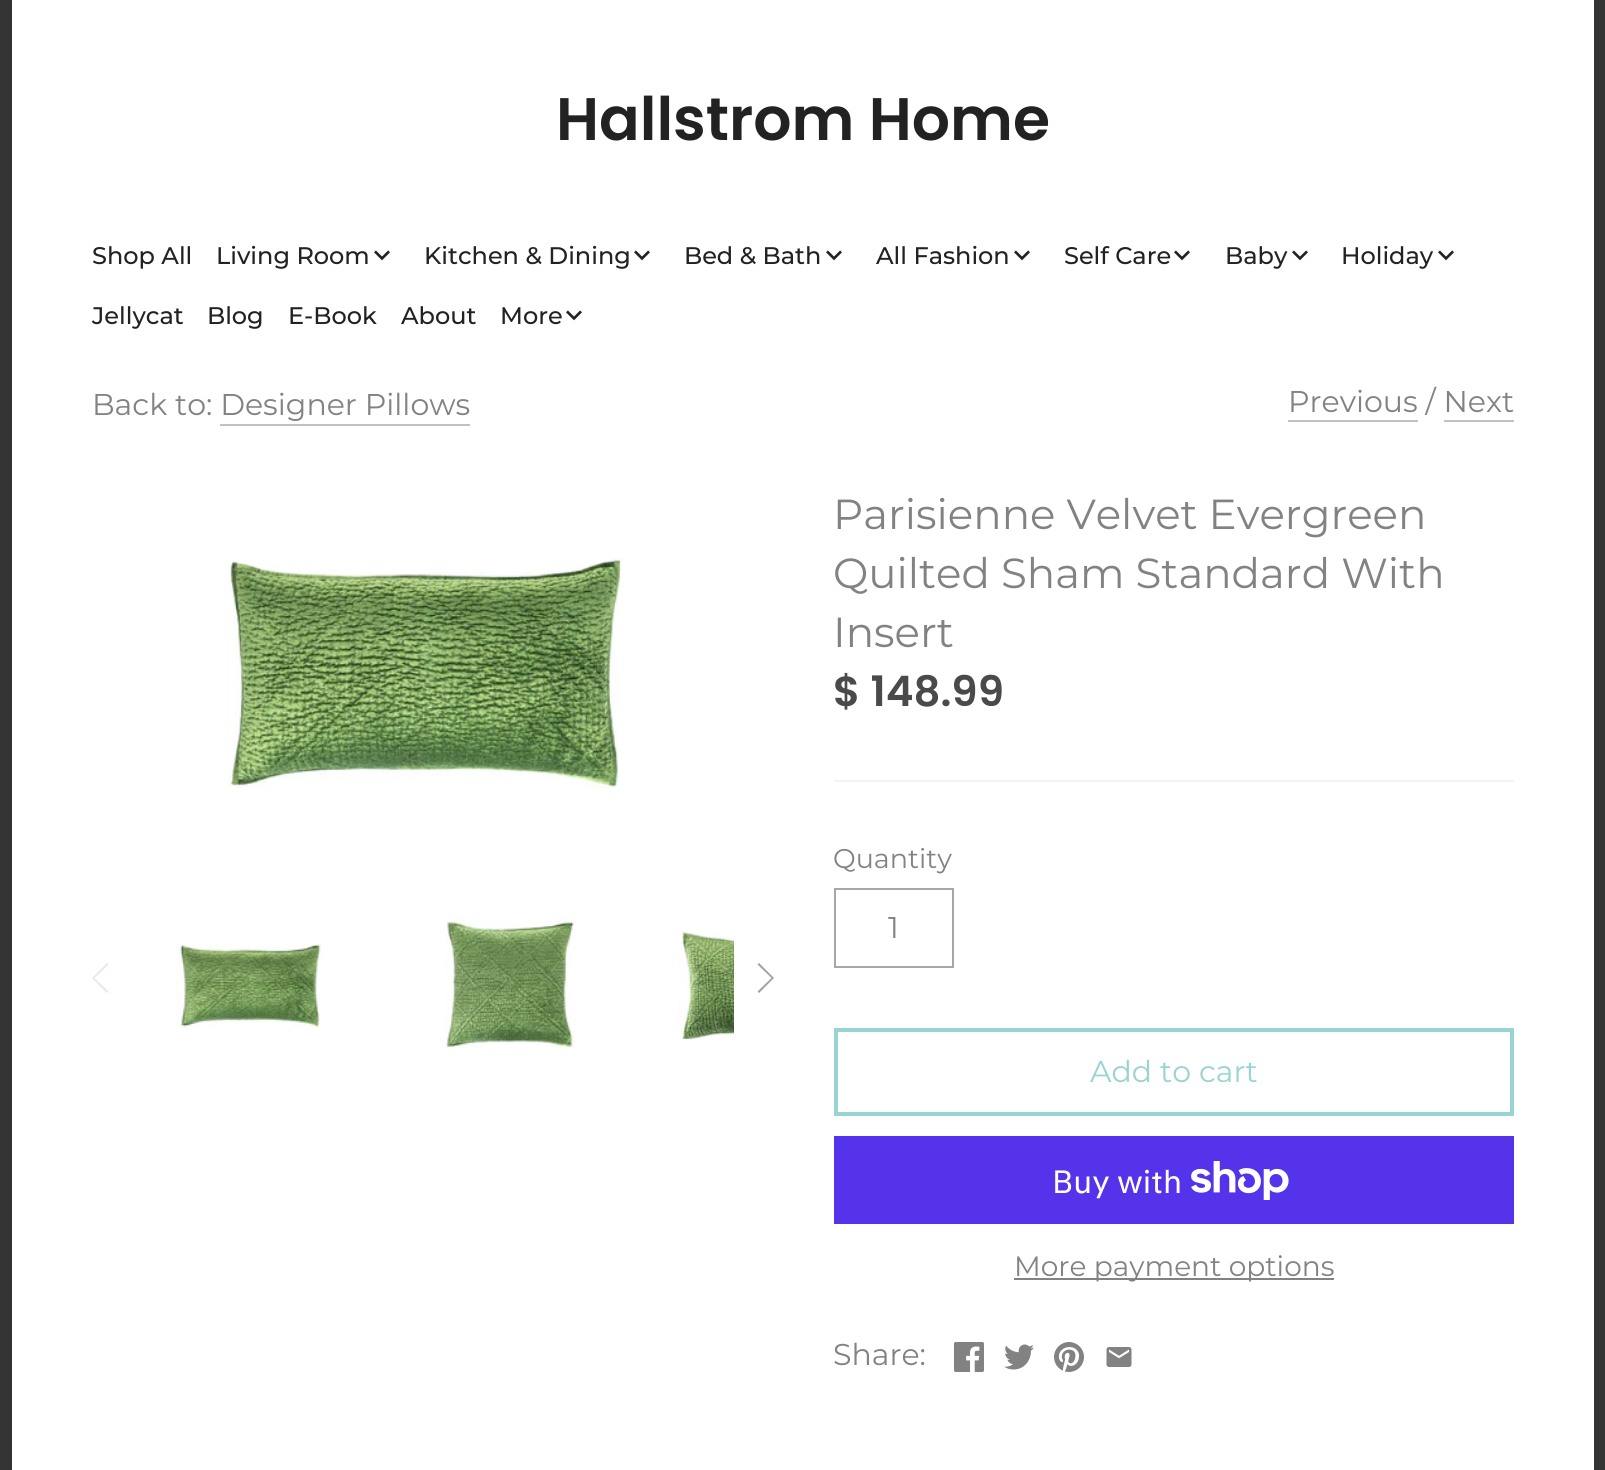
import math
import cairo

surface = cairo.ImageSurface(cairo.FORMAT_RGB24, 1605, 1470)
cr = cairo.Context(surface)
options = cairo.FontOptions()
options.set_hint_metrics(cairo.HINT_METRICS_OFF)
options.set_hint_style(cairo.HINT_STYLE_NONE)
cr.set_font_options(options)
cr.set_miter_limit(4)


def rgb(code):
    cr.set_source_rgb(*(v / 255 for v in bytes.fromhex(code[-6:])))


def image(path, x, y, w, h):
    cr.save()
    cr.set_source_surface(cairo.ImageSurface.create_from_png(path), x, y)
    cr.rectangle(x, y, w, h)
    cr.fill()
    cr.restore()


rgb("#ffffff")
cr.paint()
cr.rectangle(6, -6, 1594, 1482)
rgb("#333333")
cr.set_line_width(12)
cr.stroke()
image("img/1.png", 374, 250, 16, 11)
image("img/1.png", 634, 250, 16, 11)
image("img/1.png", 826, 250, 16, 11)
image("img/1.png", 1014, 250, 16, 11)
image("img/1.png", 1174, 250, 16, 11)
image("img/1.png", 1292, 250, 16, 11)
image("img/1.png", 1438, 250, 16, 11)
image("img/1.png", 566, 310, 16, 11)
for x, y, w, h, color in [
    (220, 424, 250, 2, "#c1c1c1"),
    (1288, 420, 130, 2, "#c1c1c1"),
    (1444, 420, 70, 2, "#c1c1c1"),
]:
    rgb(color)
    cr.rectangle(x, y, w, h)
    cr.fill()
image("img/2.png", 226, 557, 396, 232)
rgb("#e8e8e8")
cr.new_path()
cr.move_to(108.5, 964.5)
cr.line_to(107, 963)
cr.line_to(92, 978)
cr.line_to(107, 993)
cr.line_to(108.5, 991.5)
cr.line_to(94.5, 978)
cr.close_path()
cr.fill()
image("img/3.png", 176, 944, 145, 84)
image("img/4.png", 445, 919, 130, 129)
image("img/5.png", 678, 931, 56, 109)
rgb("#a1a1a1")
cr.new_path()
cr.move_to(759, 963)
cr.line_to(757.5, 964.5)
cr.line_to(771.5, 978)
cr.line_to(757.5, 991.5)
cr.line_to(759, 993)
cr.line_to(774, 978)
cr.close_path()
cr.fill()
rgb("#f4f4f4")
cr.rectangle(834, 780, 680, 2)
cr.fill()
cr.rectangle(835, 889, 118, 78)
rgb("#a7a7a7")
cr.set_line_width(2)
cr.stroke()
cr.rectangle(836, 1030, 676, 84)
rgb("#98d4d2")
cr.set_line_width(4)
cr.stroke()
rgb("#5433eb")
cr.rectangle(834, 1136, 680, 88)
cr.fill()
image("img/6.png", 1191, 1161, 98, 39)
rgb("#828282")
cr.rectangle(1014, 1278, 320, 2)
cr.fill()
image("img/7.png", 954, 1342, 30, 30)
image("img/8.png", 1004, 1344, 30, 26)
image("img/9.png", 1054, 1342, 30, 30)
image("img/10.png", 1106, 1347, 26, 20)
cr.select_font_face("Poppins SemiBold")
cr.set_font_size(60)
rgb("#222222")
cr.move_to(556, 140)
cr.show_text("Hallstrom Home")
cr.select_font_face("Montserrat Medium")
cr.set_font_size(24)
for x, y, s in [
    (92, 264, "Shop All"),
    (216, 264, "Living Room"),
    (424, 264, "Kitchen & Dining"),
    (684, 264, "Bed & Bath"),
    (876, 264, "All Fashion"),
    (1064, 264, "Self Care"),
    (1225, 264, "Baby"),
    (1341, 264, "Holiday"),
    (92, 324, "Jellycat"),
    (207, 324, "Blog"),
    (288, 324, "E-Book"),
    (401, 324, "About"),
    (500, 324, "More"),
]:
    cr.move_to(x, y)
    cr.show_text(s)
cr.select_font_face("Montserrat")
cr.set_font_size(30)
rgb("#828282")
cr.move_to(92, 415)
cr.show_text("Back to: Designer Pillows")
cr.move_to(1288, 412)
cr.show_text("Previous / Next")
cr.set_font_size(42)
for x, y, s in [
    (833, 529, "Parisienne Velvet Evergreen"),
    (833, 588, "Quilted Sham Standard With"),
    (833, 647, "Insert"),
]:
    cr.move_to(x, y)
    cr.show_text(s)
cr.select_font_face("Poppins SemiBold")
rgb("#4a4a4a")
cr.move_to(833, 706)
cr.show_text("$ 148.99")
cr.select_font_face("Montserrat")
cr.set_font_size(27)
rgb("#828282")
cr.move_to(833, 868)
cr.show_text("Quantity")
cr.set_font_size(30)
cr.move_to(888, 938)
cr.show_text("1")
rgb("#98d4d2")
cr.move_to(1090, 1082)
cr.show_text("Add to cart")
cr.select_font_face("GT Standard")
cr.set_font_size(32)
rgb("#ffffff")
cr.move_to(1052, 1193)
cr.show_text("Buy with")
cr.select_font_face("Montserrat")
cr.set_font_size(28)
rgb("#828282")
cr.move_to(1014, 1276)
cr.show_text("More payment options")
cr.set_font_size(30)
cr.move_to(833, 1365)
cr.show_text("Share:")
surface.write_to_png("page.png")
